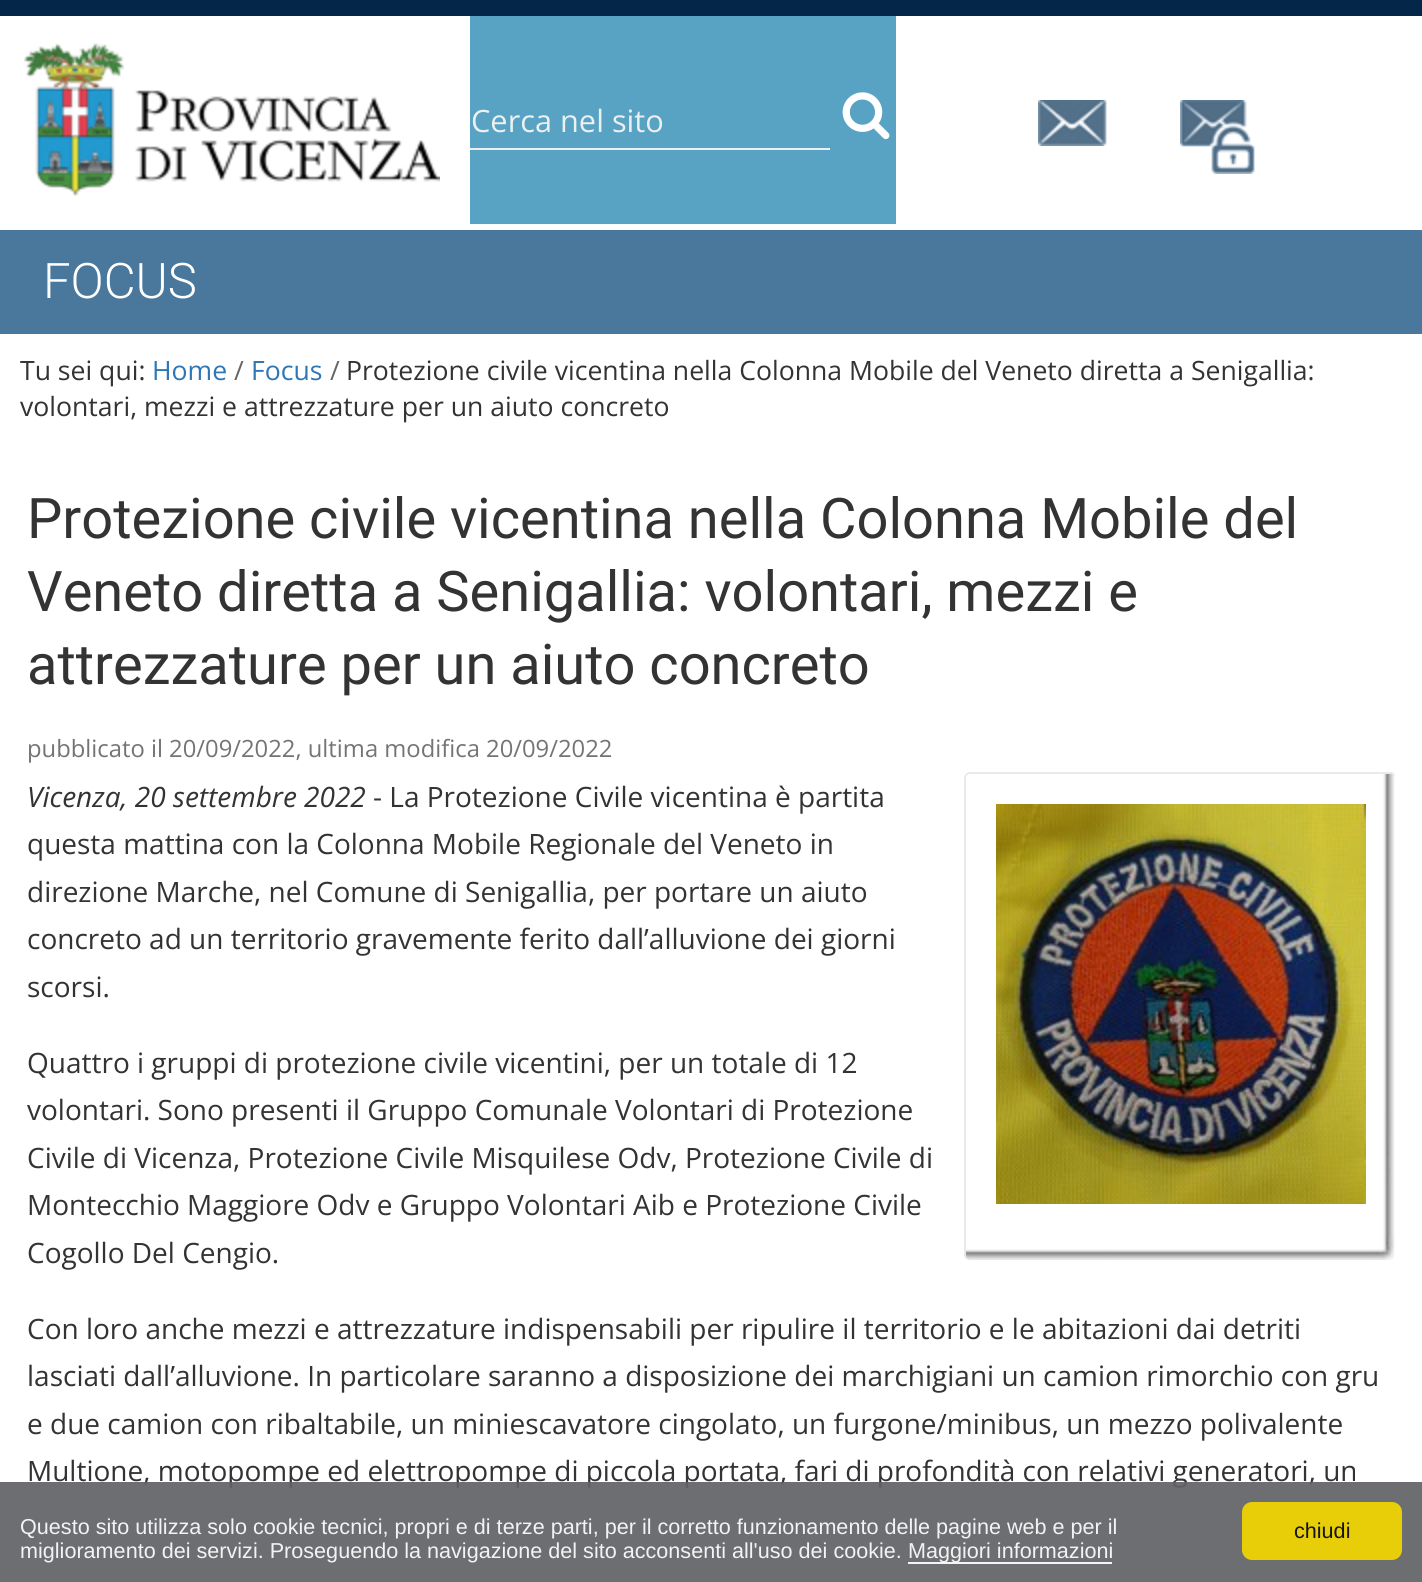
import math
import cairo

surface = cairo.ImageSurface(cairo.FORMAT_RGB24, 1422, 1582)
cr = cairo.Context(surface)
options = cairo.FontOptions()
options.set_hint_metrics(cairo.HINT_METRICS_OFF)
options.set_hint_style(cairo.HINT_STYLE_NONE)
cr.set_font_options(options)
cr.set_miter_limit(4)


def rgb(code):
    cr.set_source_rgb(*(v / 255 for v in bytes.fromhex(code[-6:])))


def rrect(x, y, w, h, r):
    cr.new_sub_path()
    for i, (u, v) in enumerate([(x + w - r, y + h - r), (x + r, y + h - r), (x + r, y + r), (x + w - r, y + r)]):
        cr.arc(u, v, r, i * math.pi / 2, (i + 1) * math.pi / 2)
    cr.close_path()


def image(path, x, y, w, h):
    cr.save()
    cr.set_source_surface(cairo.ImageSurface.create_from_png(path), x, y)
    cr.rectangle(x, y, w, h)
    cr.fill()
    cr.restore()


rgb("#ffffff")
cr.paint()
rgb("#042648")
cr.rectangle(0, 0, 1422, 16)
cr.fill()
image("img/1.png", 24, 43, 416, 153)
rgb("#58a2c4")
cr.rectangle(470, 16, 426, 208)
cr.fill()
rgb("#ecf0f1")
cr.rectangle(470, 148, 360, 2)
cr.fill()
image("img/2.png", 842, 92, 48, 48)
image("img/3.png", 1038, 100, 69, 46)
image("img/4.png", 1180, 100, 75, 74)
rgb("#4a789c")
cr.rectangle(0, 230, 1422, 104)
cr.fill()
image("img/5.png", 964, 772, 431, 488)
rgb("#eaeaea")
cr.set_fill_rule(cairo.FILL_RULE_EVEN_ODD)
cr.new_path()
cr.move_to(970, 772)
cr.line_to(1390, 772)
cr.curve_to(1393, 772, 1396, 775, 1396, 778)
cr.line_to(1396, 1254)
cr.curve_to(1396, 1257, 1393, 1260, 1390, 1260)
cr.line_to(970, 1260)
cr.curve_to(967, 1260, 964, 1257, 964, 1254)
cr.line_to(964, 778)
cr.curve_to(964, 775, 967, 772, 970, 772)
cr.close_path()
cr.move_to(970, 774)
cr.line_to(1390, 774)
cr.curve_to(1393, 774, 1396, 776, 1396, 778)
cr.line_to(1396, 1254)
cr.curve_to(1396, 1257, 1393, 1260, 1390, 1260)
cr.line_to(970, 1260)
cr.curve_to(968, 1260, 966, 1257, 966, 1254)
cr.line_to(966, 778)
cr.curve_to(966, 776, 968, 774, 970, 774)
cr.close_path()
cr.fill()
image("img/6.png", 996, 804, 370, 400)
cr.select_font_face("Open Sans")
cr.set_font_size(30.75)
rgb("#ecf0f1")
cr.move_to(471, 132)
cr.show_text("Cerca nel sito")
cr.select_font_face("Roboto Light")
cr.set_font_size(49)
rgb("#ffffff")
cr.move_to(43, 298)
cr.show_text("FOCUS")
cr.select_font_face("Open Sans")
cr.set_font_size(26.6)
rgb("#333333")
cr.move_to(20, 380)
cr.show_text("Tu sei qui:")
rgb("#2f76b5")
cr.move_to(152, 380)
cr.show_text("Home")
rgb("#666666")
cr.move_to(234, 380)
cr.show_text("/")
rgb("#2f76b5")
cr.move_to(251, 380)
cr.show_text("Focus")
rgb("#666666")
cr.move_to(330, 380)
cr.show_text("/")
rgb("#333333")
cr.move_to(346, 380)
cr.show_text("Protezione civile vicentina nella Colonna Mobile del Veneto diretta a Senigallia:")
cr.move_to(20, 416)
cr.show_text("volontari, mezzi e attrezzature per un aiuto concreto")
cr.select_font_face("Roboto")
cr.set_font_size(56)
for x, y, s in [
    (27, 538, "Protezione civile vicentina nella Colonna Mobile del"),
    (27, 611, "Veneto diretta a Senigallia: volontari, mezzi e"),
    (27, 684, "attrezzature per un aiuto concreto"),
]:
    cr.move_to(x, y)
    cr.show_text(s)
cr.select_font_face("Open Sans")
cr.set_font_size(23.8)
rgb("#747474")
cr.move_to(27, 757)
cr.show_text("pubblicato il 20/09/2022, ultima modifica 20/09/2022")
cr.select_font_face("Open Sans", cairo.FONT_SLANT_ITALIC)
cr.set_font_size(28)
rgb("#333333")
cr.move_to(27, 807)
cr.show_text("Vicenza, 20 settembre 2022")
cr.select_font_face("Open Sans")
for x, y, s in [
    (373, 807, "- La Protezione Civile vicentina è partita"),
    (27, 854, "questa mattina con la Colonna Mobile Regionale del Veneto in"),
    (27, 902, "direzione Marche, nel Comune di Senigallia, per portare un aiuto"),
    (27, 949, "concreto ad un territorio gravemente ferito dall’alluvione dei giorni"),
    (27, 997, "scorsi."),
    (27, 1073, "Quattro i gruppi di protezione civile vicentini, per un totale di 12"),
    (27, 1120, "volontari. Sono presenti il Gruppo Comunale Volontari di Protezione"),
    (27, 1168, "Civile di Vicenza, Protezione Civile Misquilese Odv, Protezione Civile di"),
    (27, 1215, "Montecchio Maggiore Odv e Gruppo Volontari Aib e Protezione Civile"),
    (27, 1263, "Cogollo Del Cengio."),
    (27, 1339, "Con loro anche mezzi e attrezzature indispensabili per ripulire il territorio e le abitazioni dai detriti"),
    (27, 1386, "lasciati dall’alluvione. In particolare saranno a disposizione dei marchigiani un camion rimorchio con gru"),
    (27, 1434, "e due camion con ribaltabile, un miniescavatore cingolato, un furgone/minibus, un mezzo polivalente"),
    (27, 1481, "Multione, motopompe ed elettropompe di piccola portata, fari di profondità con relativi generatori, un"),
]:
    cr.move_to(x, y)
    cr.show_text(s)
cr.set_source_rgba(0.38, 0.384, 0.396, 0.92)
cr.rectangle(0, 1482, 1422, 100)
cr.fill()
cr.select_font_face("Liberation Sans")
cr.set_font_size(21.6)
rgb("#f3f3f4")
cr.move_to(20, 1534)
cr.show_text("Questo sito utilizza solo cookie tecnici, propri e di terze parti, per il corretto funzionamento delle pagine web e per il")
cr.move_to(20, 1558)
cr.show_text("miglioramento dei servizi. Proseguendo la navigazione del sito acconsenti all'uso dei cookie.")
cr.set_source_rgba(1, 1, 1, 0.92)
cr.rectangle(908, 1562, 204, 2)
cr.fill()
rgb("#f3f3f4")
cr.move_to(908, 1558)
cr.show_text("Maggiori informazioni")
cr.set_source_rgba(0.945, 0.839, 0, 0.92)
rrect(1242, 1502, 160, 58, 10)
cr.fill()
rgb("#141414")
cr.move_to(1294, 1538)
cr.show_text("chiudi")
surface.write_to_png("page.png")
